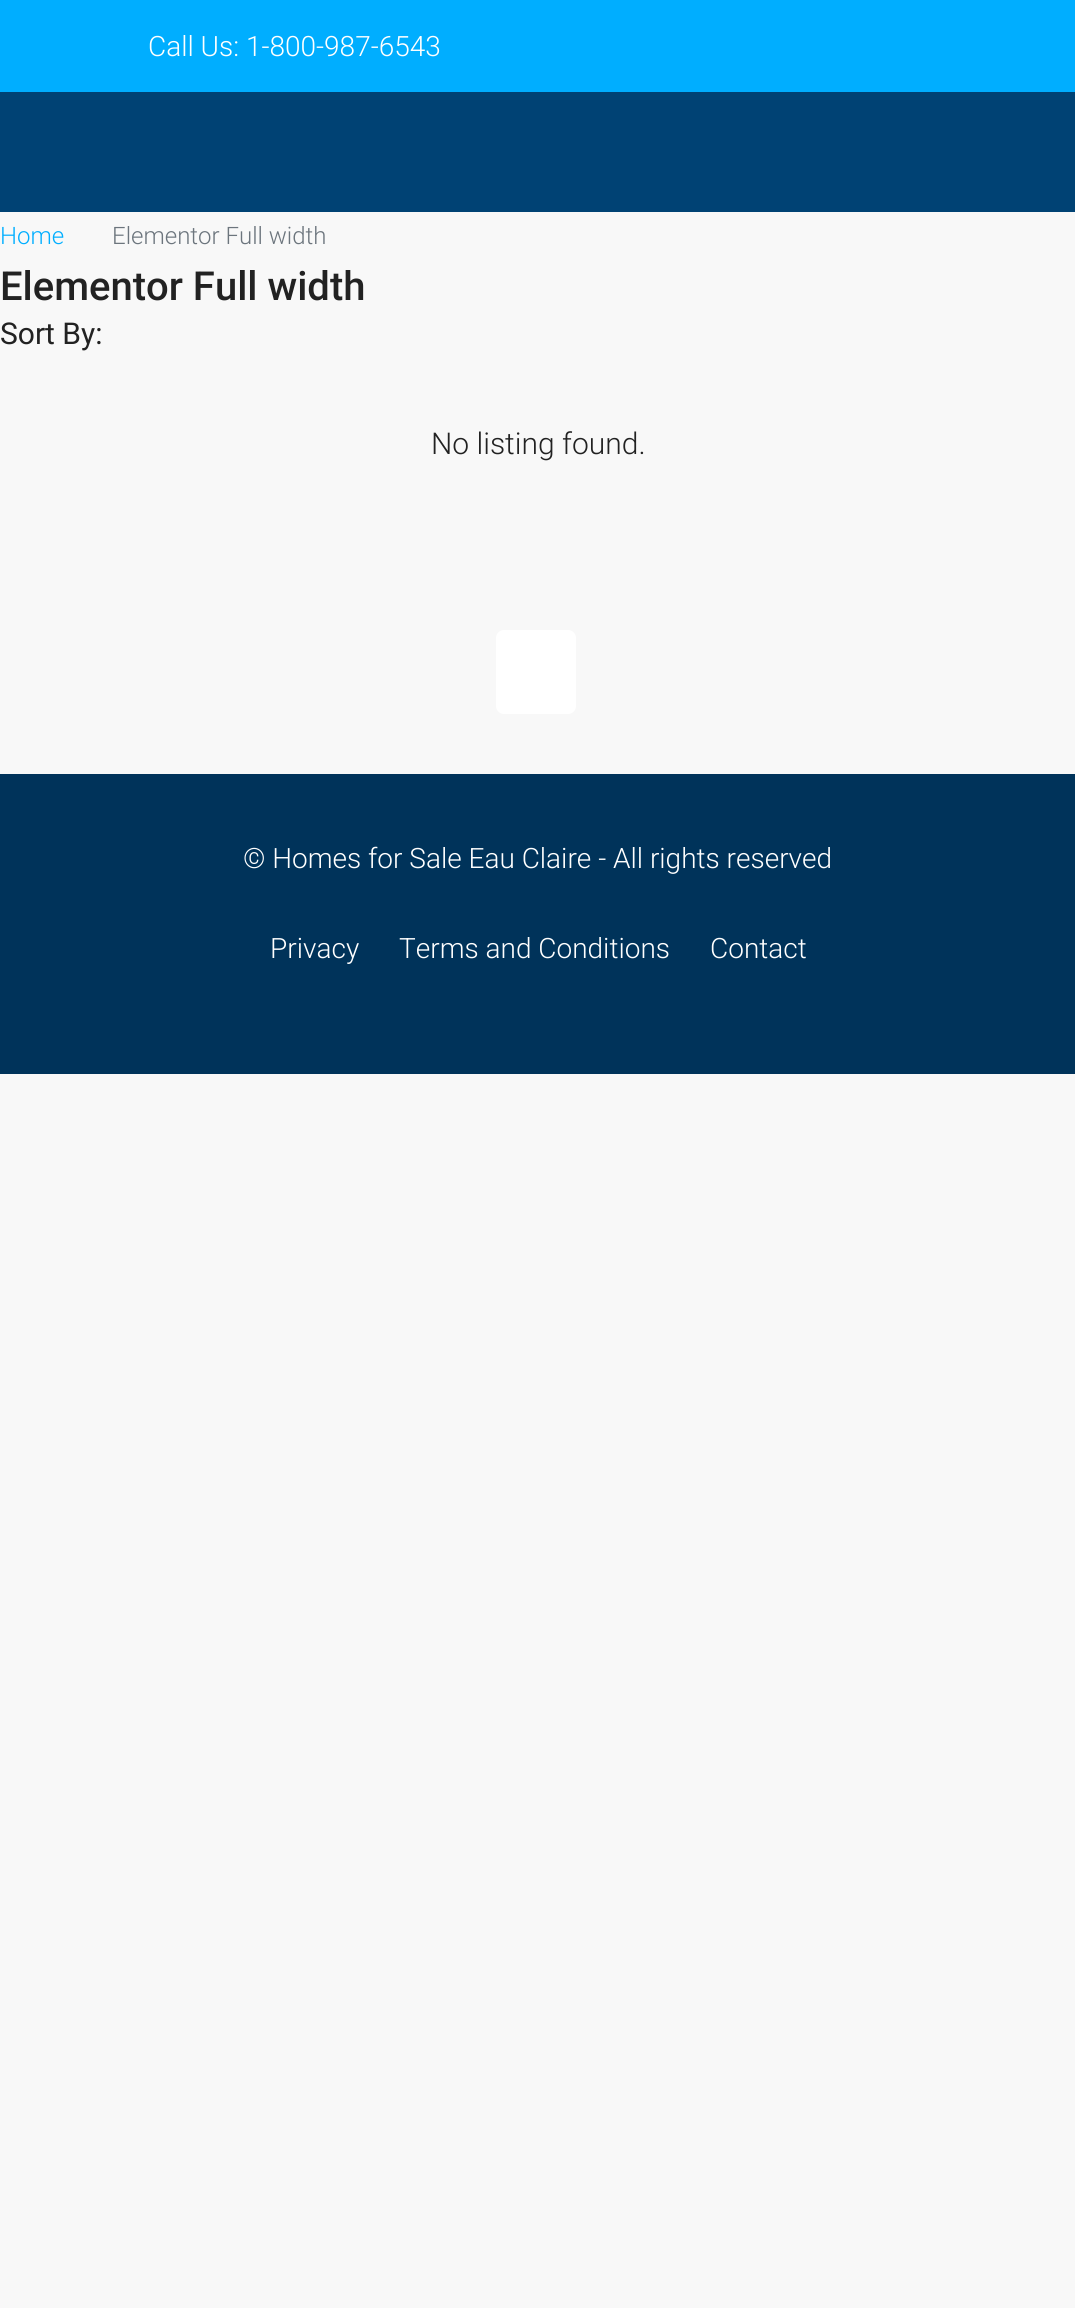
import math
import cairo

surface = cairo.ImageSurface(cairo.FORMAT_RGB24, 1075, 2308)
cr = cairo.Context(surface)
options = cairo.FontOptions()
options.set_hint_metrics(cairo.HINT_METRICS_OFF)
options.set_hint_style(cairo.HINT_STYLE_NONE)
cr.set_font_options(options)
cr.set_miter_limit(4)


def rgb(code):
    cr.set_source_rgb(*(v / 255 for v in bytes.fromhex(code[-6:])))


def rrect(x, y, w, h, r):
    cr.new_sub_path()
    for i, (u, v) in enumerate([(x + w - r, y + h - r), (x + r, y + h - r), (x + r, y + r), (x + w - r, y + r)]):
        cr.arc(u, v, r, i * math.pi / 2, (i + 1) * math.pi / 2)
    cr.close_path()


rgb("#f8f8f8")
cr.paint()
rgb("#00aeff")
cr.rectangle(0, 0, 1075, 92)
cr.fill()
rgb("#004274")
cr.rectangle(0, 92, 1075, 120)
cr.fill()
rgb("#ffffff")
rrect(496, 630, 80, 84, 8)
cr.fill()
rgb("#00335a")
cr.rectangle(0, 774, 1075, 300)
cr.fill()
cr.select_font_face("Roboto Light")
cr.set_font_size(28)
rgb("#ffffff")
cr.move_to(148, 56)
cr.show_text("Call Us: 1-800-987-6543")
cr.set_font_size(24)
rgb("#00aeff")
cr.move_to(0, 244)
cr.show_text("Home")
rgb("#6c757d")
cr.move_to(112, 244)
cr.show_text("Elementor Full width")
cr.select_font_face("Roboto Medium")
cr.set_font_size(40)
rgb("#222222")
cr.move_to(0, 300)
cr.show_text("Elementor Full width")
cr.select_font_face("Roboto")
cr.set_font_size(30)
cr.move_to(0, 344)
cr.show_text("Sort By:")
cr.select_font_face("Roboto Light")
cr.move_to(431, 454)
cr.show_text("No listing found.")
cr.set_font_size(28)
rgb("#ffffff")
for x, y, s in [
    (243, 868, "© Homes for Sale Eau Claire - All rights reserved"),
    (270, 958, "Privacy"),
    (399, 958, "Terms and Conditions"),
    (710, 958, "Contact"),
]:
    cr.move_to(x, y)
    cr.show_text(s)
surface.write_to_png("page.png")
